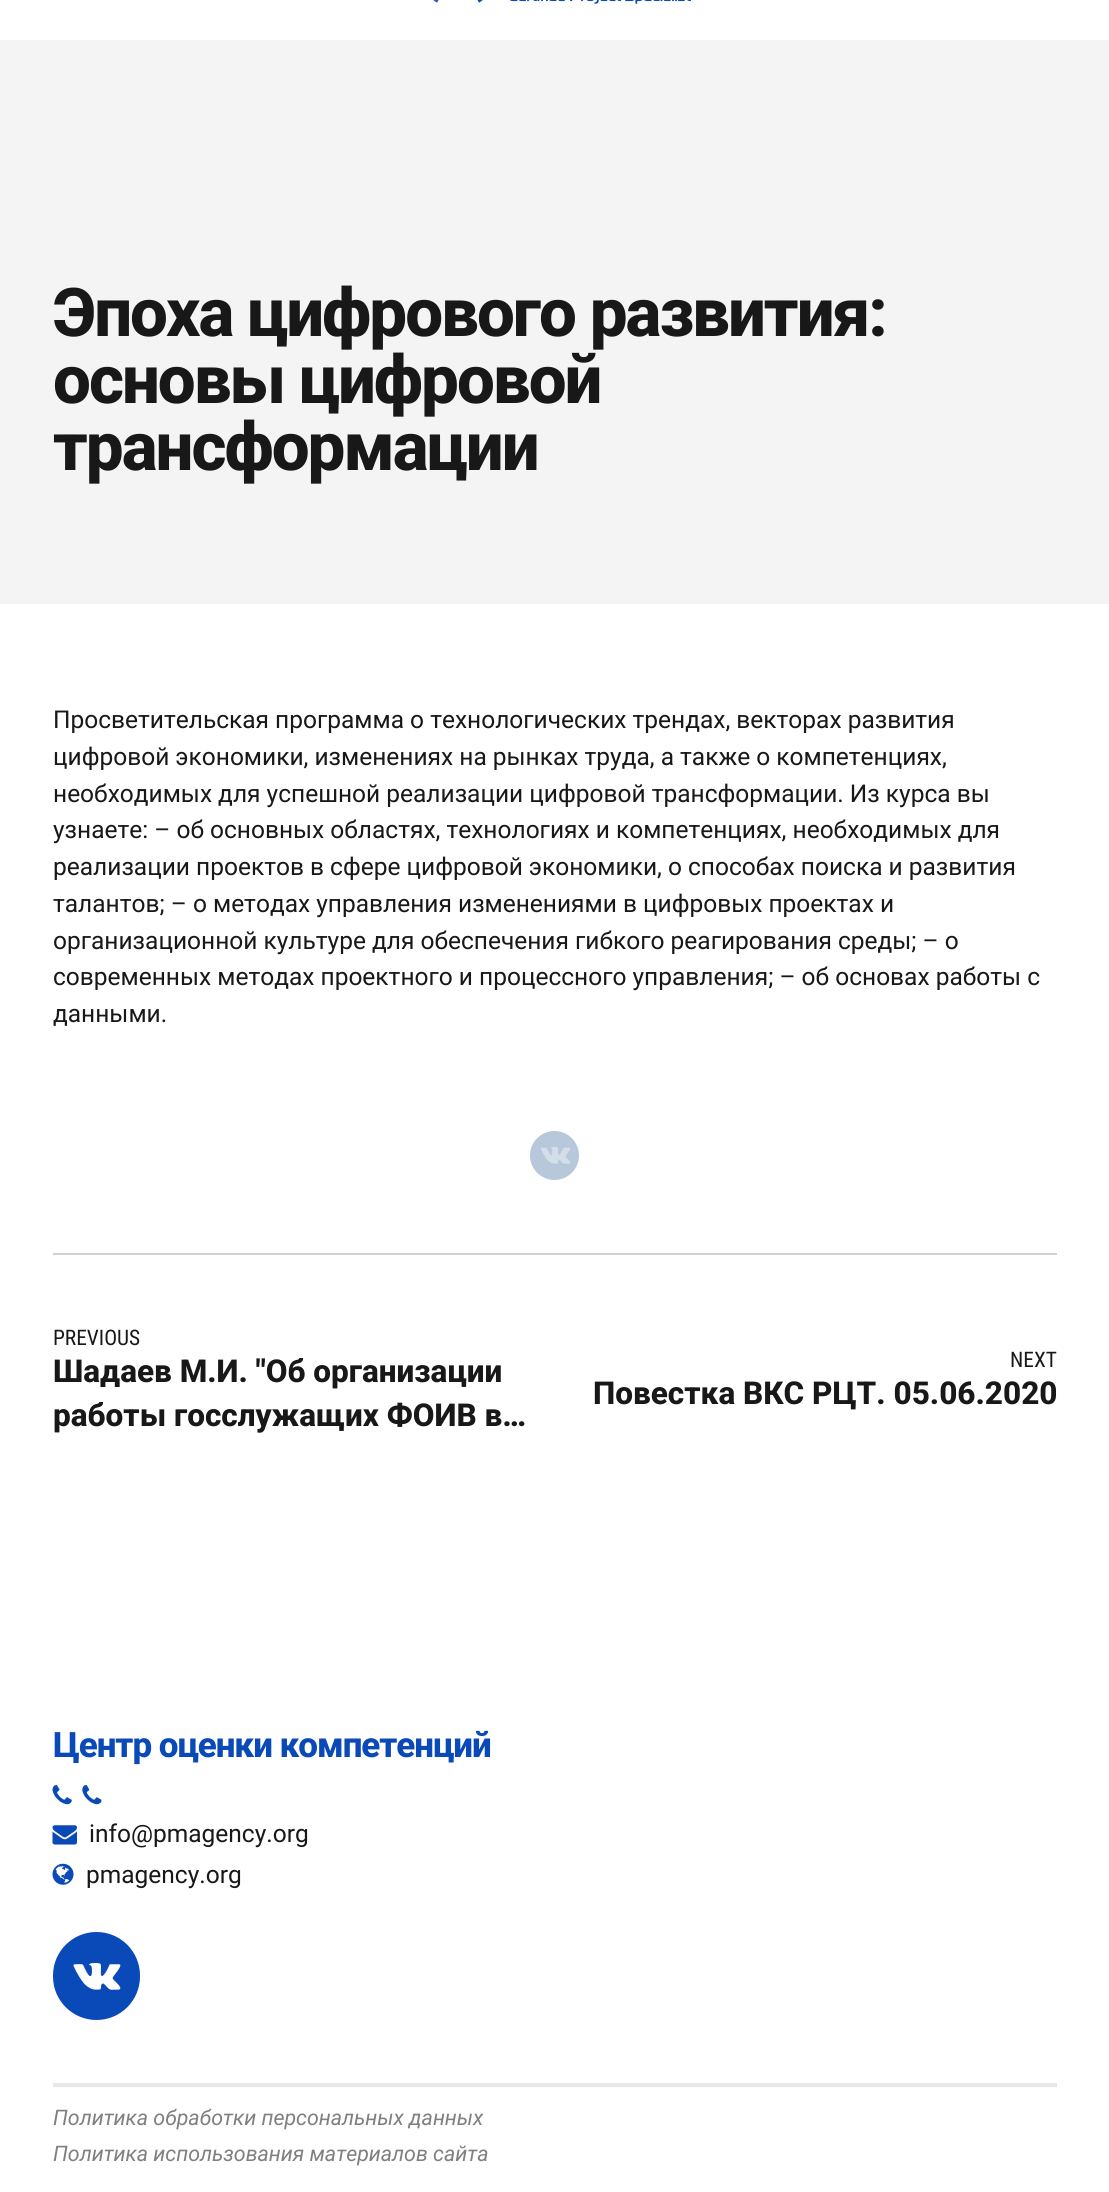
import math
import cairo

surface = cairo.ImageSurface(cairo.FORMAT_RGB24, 1109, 2192)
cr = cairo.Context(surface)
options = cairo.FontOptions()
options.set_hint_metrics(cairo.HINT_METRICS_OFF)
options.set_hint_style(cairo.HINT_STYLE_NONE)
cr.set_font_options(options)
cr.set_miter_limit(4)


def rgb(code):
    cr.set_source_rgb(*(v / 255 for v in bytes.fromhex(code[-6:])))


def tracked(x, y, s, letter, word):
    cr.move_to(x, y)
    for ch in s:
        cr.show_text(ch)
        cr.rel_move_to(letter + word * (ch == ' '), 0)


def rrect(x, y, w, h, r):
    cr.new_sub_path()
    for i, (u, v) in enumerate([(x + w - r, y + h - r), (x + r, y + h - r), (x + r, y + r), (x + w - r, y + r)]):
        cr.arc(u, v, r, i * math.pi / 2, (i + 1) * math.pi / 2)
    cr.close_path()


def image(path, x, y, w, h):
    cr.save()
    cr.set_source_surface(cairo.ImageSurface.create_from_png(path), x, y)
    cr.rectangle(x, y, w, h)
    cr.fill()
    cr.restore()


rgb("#ffffff")
cr.paint()
image("img/1.png", 433, 0, 258, 4)
rgb("#f4f4f4")
cr.rectangle(0, 40, 1109, 564)
cr.fill()
rgb("#b7c8db")
cr.arc(554.5, 1155.5, 24.5, 0, 2 * math.pi)
cr.fill()
image("img/2.png", 540, 1147, 31, 17)
rgb("#d1d1d1")
cr.rectangle(53, 1253, 1004, 2)
cr.fill()
image("img/3.png", 52, 1785, 20, 20)
image("img/4.png", 82, 1785, 20, 20)
image("img/5.png", 52, 1825, 25, 20)
image("img/6.png", 52, 1863, 22, 22)
rgb("#0a49b8")
rrect(53, 1932, 87, 88, 43.5)
cr.fill()
image("img/7.png", 73, 1963, 48, 27)
rgb("#e8e8e8")
cr.rectangle(53, 2083, 1004, 4)
cr.fill()
cr.select_font_face("Roboto ExtraBold")
cr.set_font_size(67.25)
rgb("#181818")
for x, y, s in [
    (53, 336, "Эпоха цифрового развития:"),
    (53, 403, "основы цифровой"),
    (53, 470, "трансформации"),
]:
    tracked(x, y, s, -2, 0)
cr.select_font_face("Roboto")
cr.set_font_size(24.5)
for x, y, s in [
    (53, 728, "Просветительская программа о технологических трендах, векторах развития"),
    (53, 765, "цифровой экономики, изменениях на рынках труда, а также о компетенциях,"),
    (53, 802, "необходимых для успешной реализации цифровой трансформации. Из курса вы"),
    (53, 838, "узнаете: – об основных областях, технологиях и компетенциях, необходимых для"),
    (53, 875, "реализации проектов в сфере цифровой экономики, о способах поиска и развития"),
    (53, 912, "талантов; – о методах управления изменениями в цифровых проектах и"),
    (53, 949, "организационной культуре для обеспечения гибкого реагирования среды; – о"),
    (53, 985, "современных методах проектного и процессного управления; – об основах работы с"),
    (53, 1022, "данными."),
]:
    cr.move_to(x, y)
    cr.show_text(s)
cr.select_font_face("Roboto Condensed")
cr.set_font_size(21.4)
cr.move_to(53, 1345)
cr.show_text("PREVIOUS")
cr.select_font_face("Roboto ExtraBold")
cr.set_font_size(31.5)
cr.move_to(53, 1382)
cr.show_text("Шадаев М.И. \"Об организации")
cr.move_to(53, 1426)
cr.show_text("работы госслужащих ФОИВ в…")
cr.select_font_face("Roboto Condensed")
cr.set_font_size(21.4)
cr.move_to(1010, 1367)
cr.show_text("NEXT")
cr.select_font_face("Roboto ExtraBold")
cr.set_font_size(31.5)
cr.move_to(593, 1404)
cr.show_text("Повестка ВКС РЦТ. 05.06.2020")
cr.set_font_size(35)
rgb("#0a49b8")
tracked(53, 1757, "Центр оценки компетенций", -1.05, 0)
cr.select_font_face("Roboto")
cr.set_font_size(24.5)
rgb("#181818")
cr.move_to(89, 1842)
cr.show_text("info@pmagency.org")
cr.move_to(86, 1883)
cr.show_text("pmagency.org")
cr.select_font_face("Roboto", cairo.FONT_SLANT_ITALIC)
cr.set_font_size(21.4)
rgb("#808080")
cr.move_to(53, 2125)
cr.show_text("Политика обработки персональных данных")
cr.move_to(53, 2161)
cr.show_text("Политика использования материалов сайта")
surface.write_to_png("page.png")
